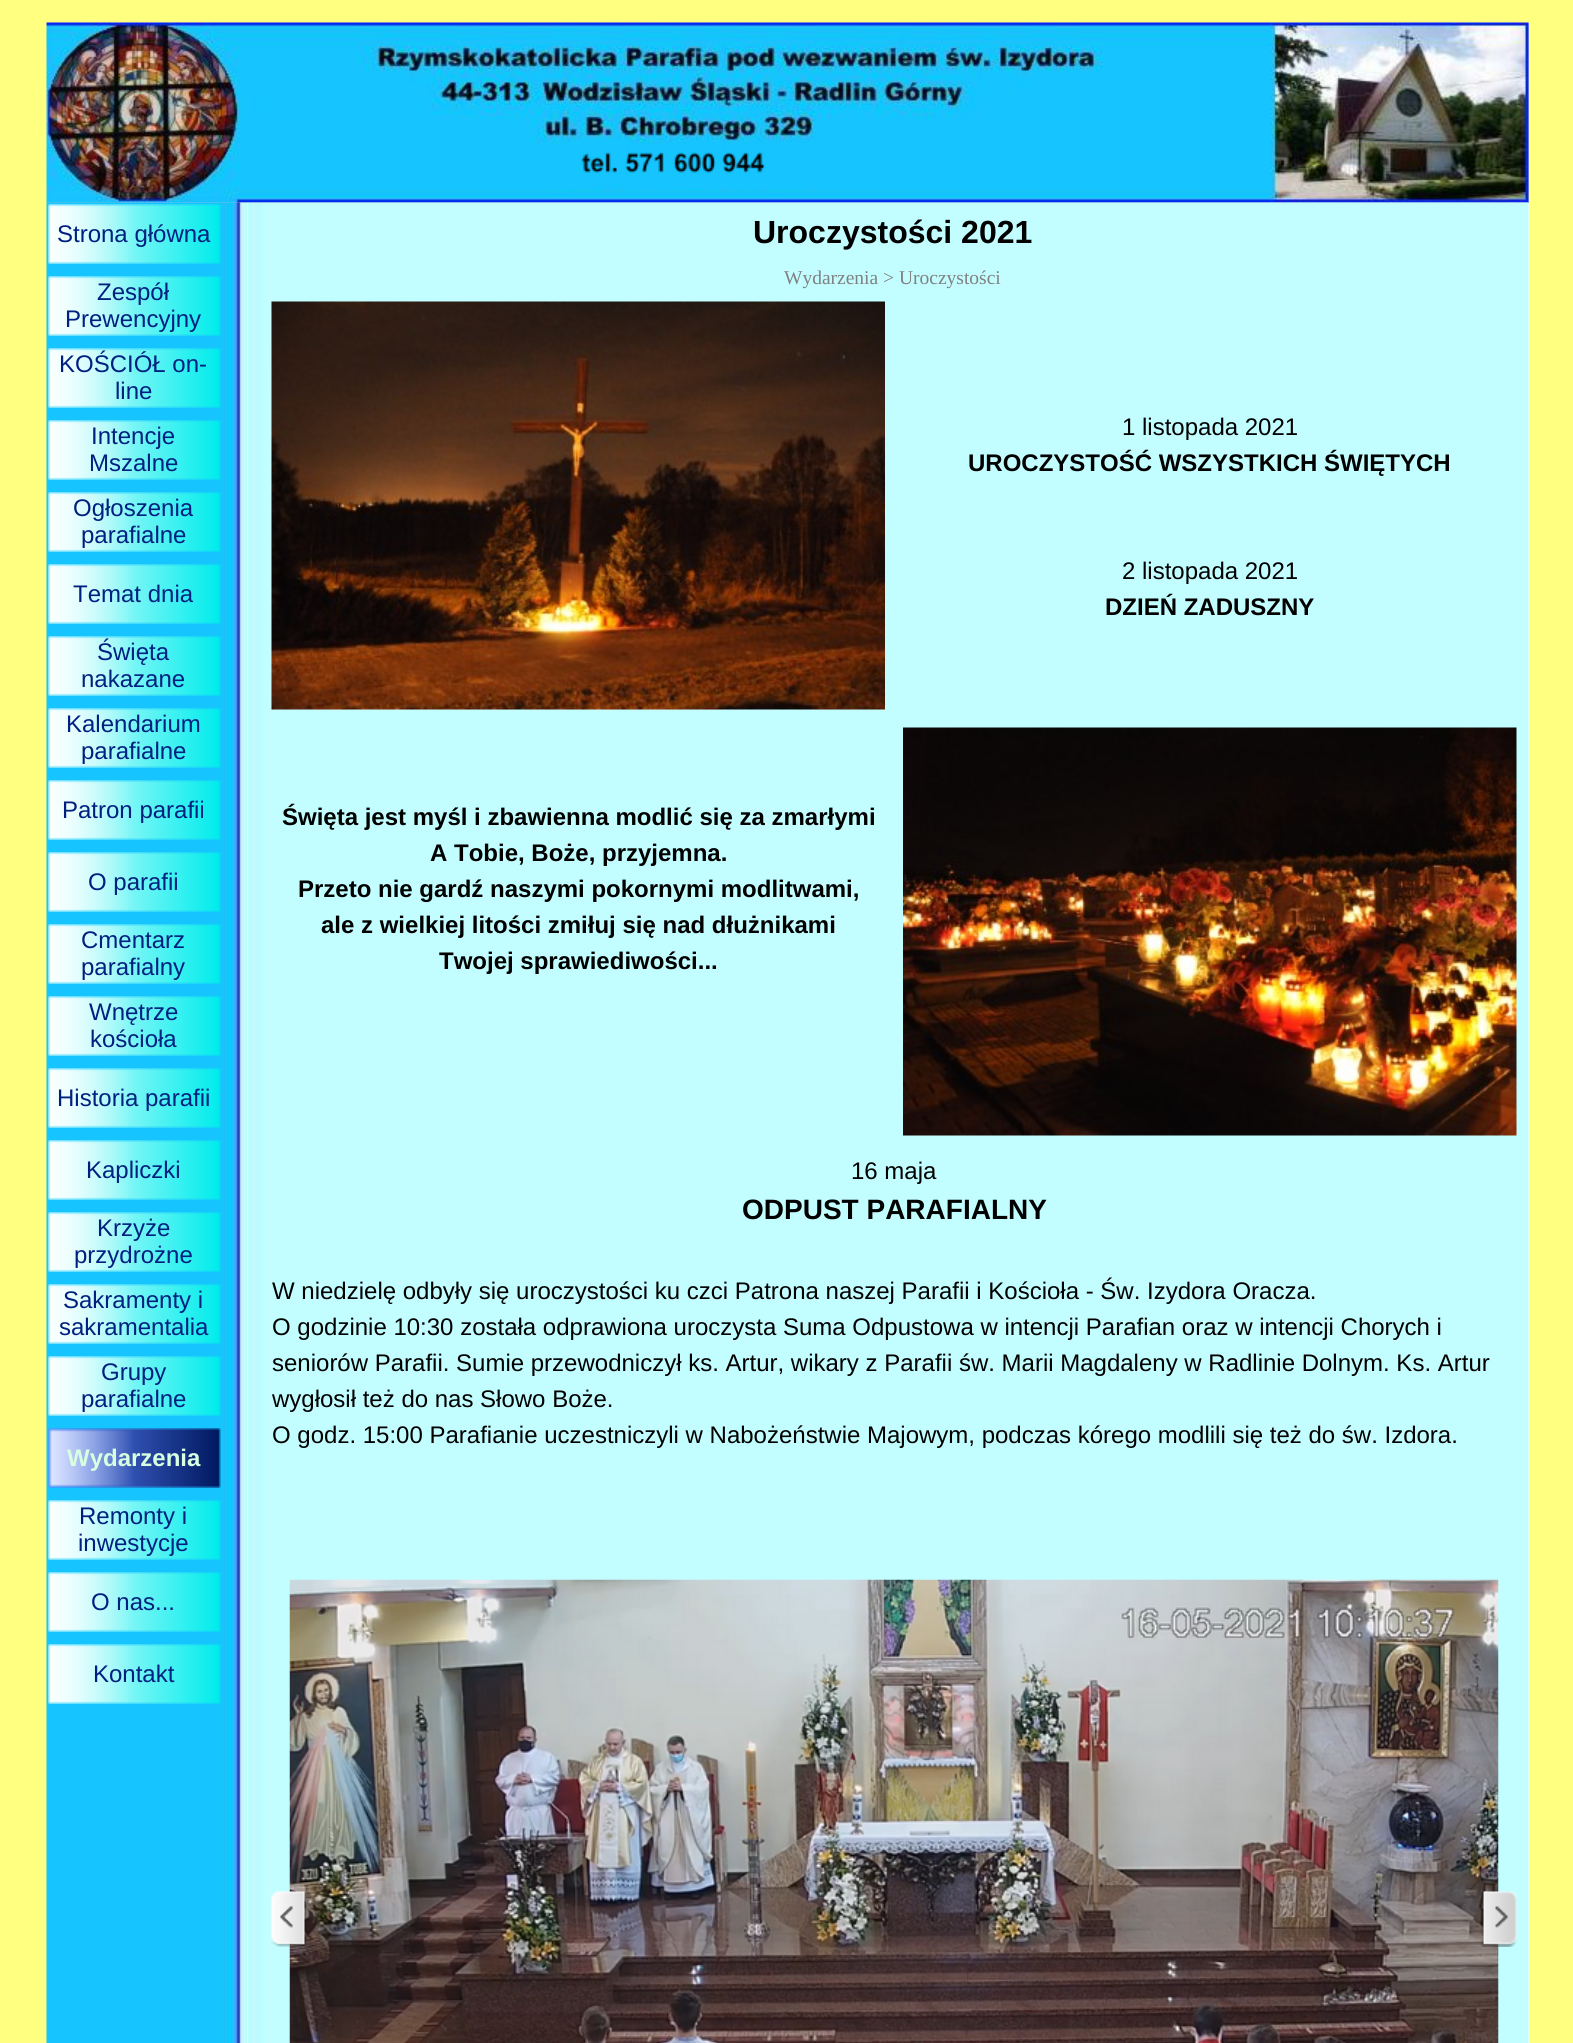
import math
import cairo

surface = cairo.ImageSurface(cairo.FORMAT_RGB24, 1573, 2043)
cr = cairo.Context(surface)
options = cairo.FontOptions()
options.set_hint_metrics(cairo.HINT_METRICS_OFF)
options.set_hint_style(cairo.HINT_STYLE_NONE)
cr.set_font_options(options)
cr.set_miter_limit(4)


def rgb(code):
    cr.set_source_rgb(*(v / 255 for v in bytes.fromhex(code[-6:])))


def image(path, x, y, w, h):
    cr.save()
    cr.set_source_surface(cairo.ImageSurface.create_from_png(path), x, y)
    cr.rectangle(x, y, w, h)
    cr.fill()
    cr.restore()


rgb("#ffff80")
cr.paint()
rgb("#c0c0c0")
cr.rectangle(47, 23, 1482, 180)
cr.fill()
image("img/1.png", 46, 22, 1483, 181)
rgb("#ffffff")
cr.rectangle(1528, 203, 1, 1840)
cr.fill()
image("img/2.png", 247, 202, 1282, 1841)
cr.rectangle(247, 203, 1, 1840)
cr.fill()
image("img/3.png", 46, 202, 202, 1841)
image("img/4.png", 48, 204, 173, 60)
image("img/4.png", 48, 276, 173, 60)
image("img/4.png", 48, 348, 173, 60)
image("img/4.png", 48, 420, 173, 60)
image("img/4.png", 48, 492, 173, 60)
image("img/4.png", 48, 564, 173, 60)
image("img/4.png", 48, 636, 173, 60)
image("img/4.png", 48, 708, 173, 60)
image("img/4.png", 48, 780, 173, 60)
image("img/4.png", 48, 852, 173, 60)
image("img/4.png", 48, 924, 173, 60)
image("img/4.png", 48, 996, 173, 60)
image("img/4.png", 48, 1068, 173, 60)
image("img/4.png", 48, 1140, 173, 60)
image("img/4.png", 48, 1212, 173, 60)
image("img/4.png", 48, 1284, 173, 60)
image("img/4.png", 48, 1356, 173, 60)
image("img/5.png", 48, 1428, 173, 60)
image("img/4.png", 48, 1500, 173, 60)
image("img/4.png", 48, 1572, 173, 60)
image("img/4.png", 48, 1644, 173, 60)
image("img/6.png", 271, 301, 614, 409)
image("img/7.png", 903, 727, 614, 409)
image("img/8.png", 289, 1579, 1210, 464)
image("img/9.png", 271, 1891, 37, 56)
image("img/10.png", 1480, 1891, 37, 56)
cr.select_font_face("Liberation Sans")
cr.set_font_size(24)
rgb("#002080")
for x, y, s in [
    (57, 242, "Strona główna"),
    (97, 300, "Zespół"),
    (65, 327, "Prewencyjny"),
    (59, 372, "KOŚCIÓŁ on-"),
    (115, 399, "line"),
    (91, 444, "Intencje"),
    (89, 471, "Mszalne"),
    (73, 516, "Ogłoszenia"),
    (81, 543, "parafialne"),
    (73, 602, "Temat dnia"),
    (97, 660, "Święta"),
    (81, 687, "nakazane"),
    (66, 732, "Kalendarium"),
    (81, 759, "parafialne"),
    (62, 818, "Patron parafii"),
    (88, 890, "O parafii"),
    (81, 948, "Cmentarz"),
    (81, 975, "parafialny"),
    (89, 1020, "Wnętrze"),
    (90, 1047, "kościoła"),
    (57, 1106, "Historia parafii"),
    (86, 1178, "Kapliczki"),
    (97, 1236, "Krzyże"),
    (74, 1263, "przydrożne"),
    (63, 1308, "Sakramenty i"),
    (59, 1335, "sakramentalia"),
    (101, 1380, "Grupy"),
    (81, 1407, "parafialne"),
]:
    cr.move_to(x, y)
    cr.show_text(s)
cr.select_font_face("Liberation Sans", cairo.FONT_SLANT_NORMAL, cairo.FONT_WEIGHT_BOLD)
rgb("#d7ffe1")
cr.move_to(67, 1466)
cr.show_text("Wydarzenia")
cr.select_font_face("Liberation Sans")
rgb("#002080")
for x, y, s in [
    (79, 1524, "Remonty i"),
    (78, 1551, "inwestycje"),
    (91, 1610, "O nas..."),
    (93, 1682, "Kontakt"),
]:
    cr.move_to(x, y)
    cr.show_text(s)
cr.select_font_face("Liberation Sans", cairo.FONT_SLANT_NORMAL, cairo.FONT_WEIGHT_BOLD)
cr.set_font_size(32)
rgb("#000000")
cr.move_to(753, 243)
cr.show_text("Uroczystości 2021")
cr.select_font_face("Liberation Serif")
cr.set_font_size(19.5)
rgb("#808080")
cr.move_to(784, 284)
cr.show_text("Wydarzenia > Uroczystości")
cr.select_font_face("Liberation Sans")
cr.set_font_size(24)
rgb("#000000")
cr.move_to(1122, 435)
cr.show_text("1 listopada 2021")
cr.select_font_face("Liberation Sans", cairo.FONT_SLANT_NORMAL, cairo.FONT_WEIGHT_BOLD)
cr.move_to(968, 471)
cr.show_text("UROCZYSTOŚĆ WSZYSTKICH ŚWIĘTYCH")
cr.select_font_face("Liberation Sans")
cr.move_to(1122, 579)
cr.show_text("2 listopada 2021")
cr.select_font_face("Liberation Sans", cairo.FONT_SLANT_NORMAL, cairo.FONT_WEIGHT_BOLD)
for x, y, s in [
    (1105, 615, "DZIEŃ ZADUSZNY"),
    (282, 825, "Święta jest myśl i zbawienna modlić się za zmarłymi"),
    (430, 861, "A Tobie, Boże, przyjemna."),
    (298, 897, "Przeto nie gardź naszymi pokornymi modlitwami,"),
    (321, 933, "ale z wielkiej litości zmiłuj się nad dłużnikami"),
    (439, 969, "Twojej sprawiediwości..."),
]:
    cr.move_to(x, y)
    cr.show_text(s)
cr.select_font_face("Liberation Sans")
cr.move_to(851, 1179)
cr.show_text("16 maja")
cr.select_font_face("Liberation Sans", cairo.FONT_SLANT_NORMAL, cairo.FONT_WEIGHT_BOLD)
cr.set_font_size(28)
cr.move_to(742, 1219)
cr.show_text("ODPUST PARAFIALNY")
cr.select_font_face("Liberation Sans")
cr.set_font_size(24)
for x, y, s in [
    (272, 1299, "W niedzielę odbyły się uroczystości ku czci Patrona naszej Parafii i Kościoła - Św. Izydora Oracza."),
    (272, 1335, "O godzinie 10:30 została odprawiona uroczysta Suma Odpustowa w intencji Parafian oraz w intencji Chorych i"),
    (272, 1371, "seniorów Parafii. Sumie przewodniczył ks. Artur, wikary z Parafii św. Marii Magdaleny w Radlinie Dolnym. Ks. Artur"),
    (272, 1407, "wygłosił też do nas Słowo Boże."),
    (272, 1443, "O godz. 15:00 Parafianie uczestniczyli w Nabożeństwie Majowym, podczas kórego modlili się też do św. Izdora."),
]:
    cr.move_to(x, y)
    cr.show_text(s)
surface.write_to_png("page.png")
